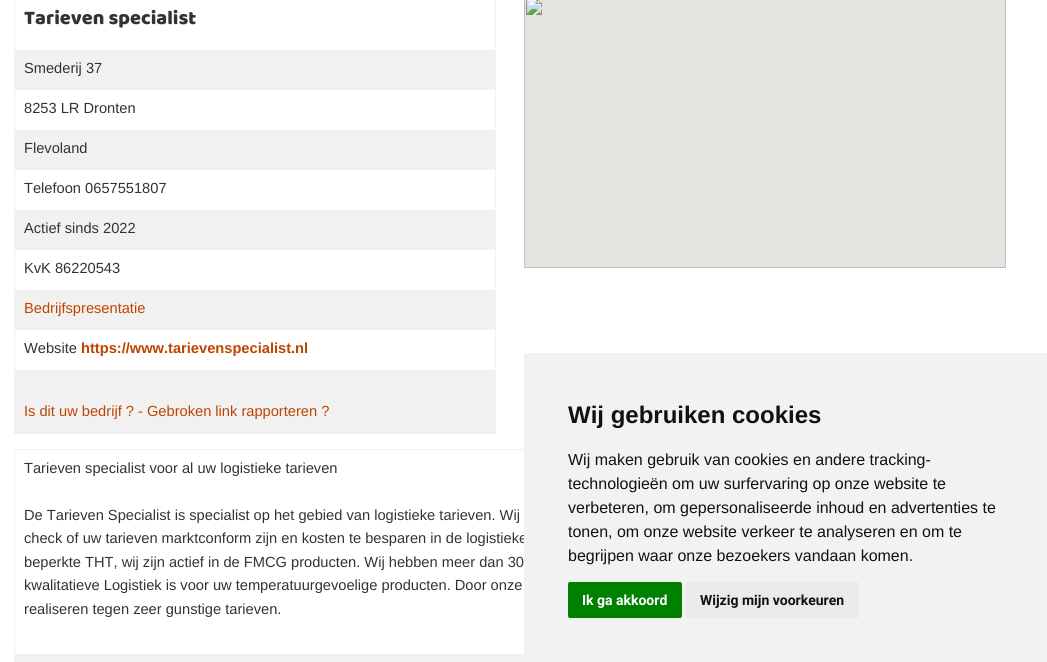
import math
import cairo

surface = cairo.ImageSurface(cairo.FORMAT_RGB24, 1047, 662)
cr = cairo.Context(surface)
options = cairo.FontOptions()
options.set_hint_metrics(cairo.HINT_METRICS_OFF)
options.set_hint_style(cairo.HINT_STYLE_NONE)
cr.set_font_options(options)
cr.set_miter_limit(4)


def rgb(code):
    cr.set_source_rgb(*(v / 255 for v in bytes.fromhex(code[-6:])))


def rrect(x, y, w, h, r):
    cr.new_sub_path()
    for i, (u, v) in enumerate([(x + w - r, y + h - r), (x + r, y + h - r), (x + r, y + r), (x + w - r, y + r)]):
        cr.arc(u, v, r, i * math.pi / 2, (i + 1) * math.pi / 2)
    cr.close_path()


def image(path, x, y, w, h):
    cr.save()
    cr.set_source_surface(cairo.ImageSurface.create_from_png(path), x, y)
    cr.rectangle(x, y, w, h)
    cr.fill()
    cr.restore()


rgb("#ffffff")
cr.paint()
for x, y, w, h, color in [
    (495, 0, 1, 434, "#f1f1f1"),
    (14, 433, 482, 1, "#f1f1f1"),
    (14, 0, 1, 434, "#f1f1f1"),
    (15, 50, 480, 40, "#f1f1f1"),
    (15, 130, 480, 40, "#f1f1f1"),
    (15, 210, 480, 40, "#f1f1f1"),
    (15, 290, 480, 40, "#f1f1f1"),
    (15, 370, 480, 63, "#f1f1f1"),
]:
    rgb(color)
    cr.rectangle(x, y, w, h)
    cr.fill()
image("img/1.png", 524, 0, 482, 268)
for x, y, w, h, color in [
    (14, 449, 510, 1, "#f1f1f1"),
    (14, 654, 510, 8, "#f1f1f1"),
    (14, 449, 1, 213, "#f1f1f1"),
]:
    rgb(color)
    cr.rectangle(x, y, w, h)
    cr.fill()
cr.select_font_face("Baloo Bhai")
cr.set_font_size(20)
rgb("#333333")
cr.move_to(24, 24)
cr.show_text("Tarieven specialist")
cr.select_font_face("Liberation Sans")
cr.set_font_size(14.65)
for x, y, s in [
    (24, 73, "Smederij 37"),
    (24, 113, "8253 LR Dronten"),
    (24, 153, "Flevoland"),
    (24, 193, "Telefoon 0657551807"),
    (24, 233, "Actief sinds 2022"),
    (24, 273, "KvK 86220543"),
]:
    cr.move_to(x, y)
    cr.show_text(s)
rgb("#bf4400")
cr.move_to(24, 313)
cr.show_text("Bedrijfspresentatie")
rgb("#333333")
cr.move_to(24, 353)
cr.show_text("Website")
cr.select_font_face("Liberation Sans", cairo.FONT_SLANT_NORMAL, cairo.FONT_WEIGHT_BOLD)
rgb("#bf4400")
cr.move_to(81, 353)
cr.show_text("https://www.tarievenspecialist.nl")
cr.select_font_face("Liberation Sans")
cr.move_to(24, 416)
cr.show_text("Is dit uw bedrijf ? - Gebroken link rapporteren ?")
rgb("#333333")
for x, y, s in [
    (24, 473, "Tarieven specialist voor al uw logistieke tarieven"),
    (24, 520, "De Tarieven Specialist is specialist op het gebied van logistieke tarieven. Wij"),
    (24, 543, "check of uw tarieven marktconform zijn en kosten te besparen in de logistieke"),
    (24, 567, "beperkte THT, wij zijn actief in de FMCG producten. Wij hebben meer dan 30"),
    (24, 590, "kwalitatieve Logistiek is voor uw temperatuurgevoelige producten. Door onze"),
    (24, 614, "realiseren tegen zeer gunstige tarieven."),
]:
    cr.move_to(x, y)
    cr.show_text(s)
rgb("#f2f2f2")
cr.rectangle(524, 353, 523, 309)
cr.fill()
cr.select_font_face("Liberation Sans", cairo.FONT_SLANT_NORMAL, cairo.FONT_WEIGHT_BOLD)
cr.set_font_size(24)
rgb("#111111")
cr.move_to(568, 423)
cr.show_text("Wij gebruiken cookies")
cr.select_font_face("Liberation Sans")
cr.set_font_size(16)
for x, y, s in [
    (568, 465, "Wij maken gebruik van cookies en andere tracking-"),
    (568, 489, "technologieën om uw surfervaring op onze website te"),
    (568, 513, "verbeteren, om gepersonaliseerde inhoud en advertenties te"),
    (568, 537, "tonen, om onze website verkeer te analyseren en om te"),
    (568, 561, "begrijpen waar onze bezoekers vandaan komen."),
]:
    cr.move_to(x, y)
    cr.show_text(s)
rgb("#008000")
rrect(568, 582, 114, 36, 2)
cr.fill()
cr.select_font_face("Roboto", cairo.FONT_SLANT_NORMAL, cairo.FONT_WEIGHT_BOLD)
cr.set_font_size(14)
rgb("#ffffff")
cr.move_to(582, 605)
cr.show_text("Ik ga akkoord")
rgb("#eaeaea")
rrect(686, 582, 173, 36, 2)
cr.fill()
rgb("#111111")
cr.move_to(700, 605)
cr.show_text("Wijzig mijn voorkeuren")
surface.write_to_png("page.png")
